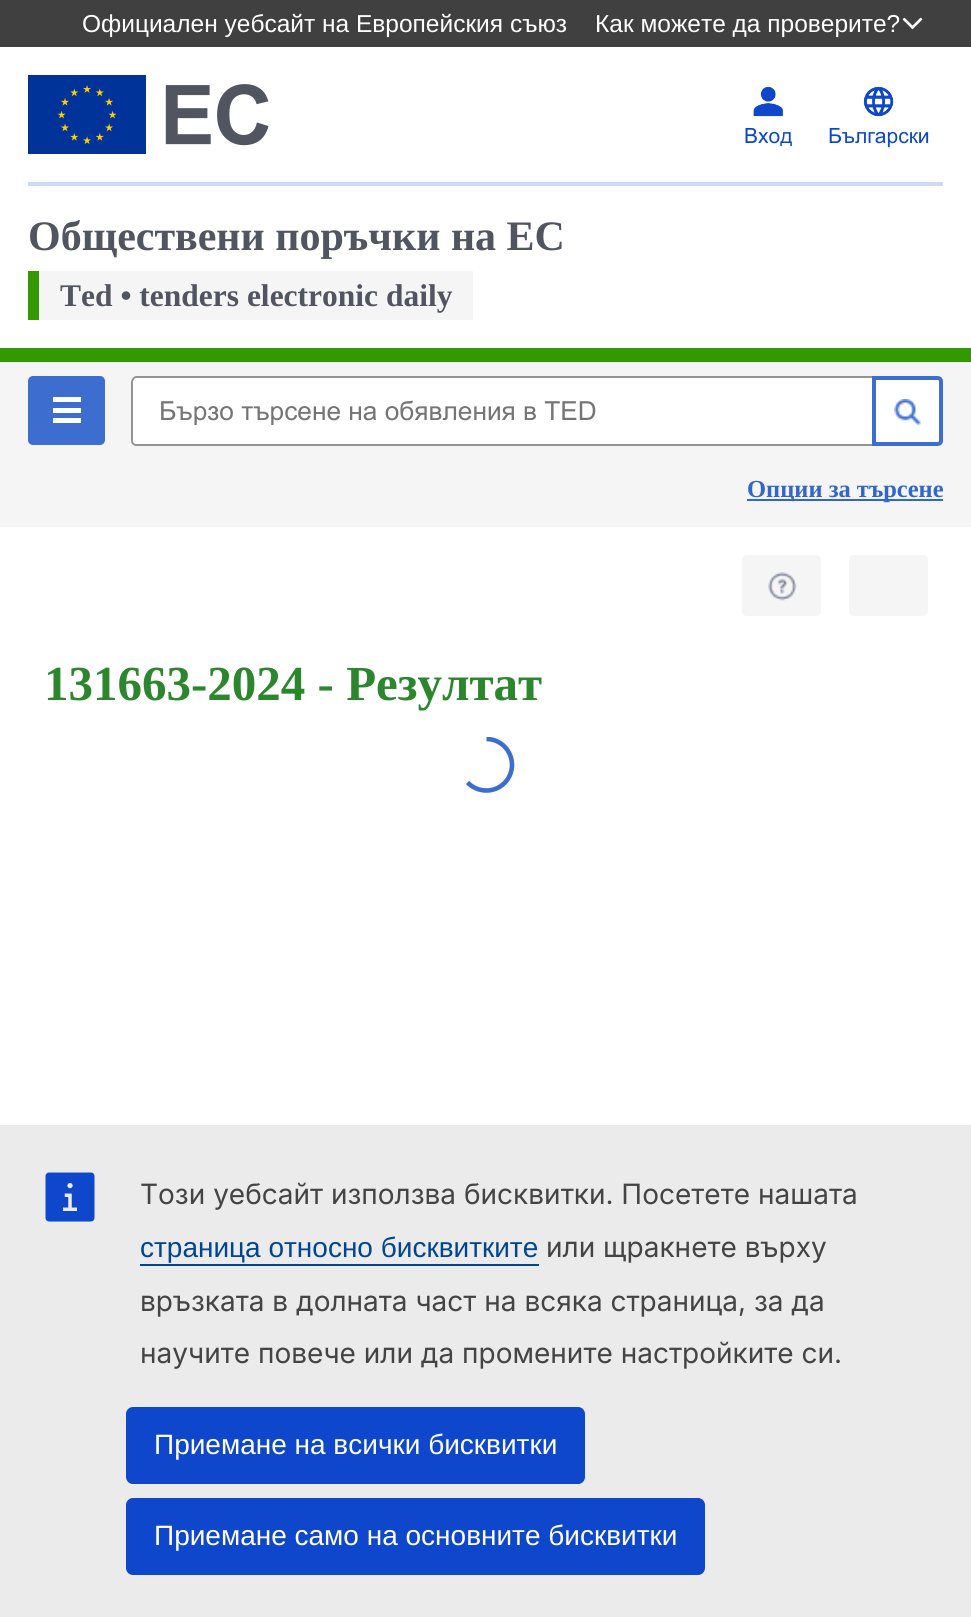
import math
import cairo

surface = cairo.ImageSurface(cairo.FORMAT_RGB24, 971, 1617)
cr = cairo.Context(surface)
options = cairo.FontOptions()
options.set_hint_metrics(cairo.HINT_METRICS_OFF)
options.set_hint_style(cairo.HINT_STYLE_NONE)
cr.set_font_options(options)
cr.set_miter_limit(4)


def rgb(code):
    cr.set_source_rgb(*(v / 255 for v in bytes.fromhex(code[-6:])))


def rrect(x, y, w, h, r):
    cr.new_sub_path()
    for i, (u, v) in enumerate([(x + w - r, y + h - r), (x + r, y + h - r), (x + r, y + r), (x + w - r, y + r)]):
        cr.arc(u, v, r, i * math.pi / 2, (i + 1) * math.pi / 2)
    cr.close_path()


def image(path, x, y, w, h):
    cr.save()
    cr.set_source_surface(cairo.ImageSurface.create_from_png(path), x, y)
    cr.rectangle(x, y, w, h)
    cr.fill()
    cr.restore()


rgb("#ffffff")
cr.paint()
rgb("#404040")
cr.rectangle(0, 0, 971, 47)
cr.fill()
image("img/1.png", 902, 17, 21, 13)
rgb("#cfdaf5")
cr.rectangle(28, 182, 915, 4)
cr.fill()
image("img/2.png", 28, 75, 241, 79)
image("img/3.png", 753, 86, 30, 31)
image("img/4.png", 863, 86, 31, 31)
for x, y, w, h, color in [
    (39, 271, 434, 49, "#f5f5f5"),
    (28, 271, 11, 49, "#339900"),
    (0, 348, 971, 14, "#339900"),
    (0, 362, 971, 165, "#f5f5f5"),
]:
    rgb(color)
    cr.rectangle(x, y, w, h)
    cr.fill()
rgb("#3d6ecf")
rrect(28, 376, 77, 69, 5)
cr.fill()
for x, y, w, h, color in [
    (53, 397, 28, 5, "#ffffff"),
    (53, 408, 28, 5, "#ffffff"),
    (53, 418, 28, 5, "#ffffff"),
]:
    rgb(color)
    cr.rectangle(x, y, w, h)
    cr.fill()
cr.new_path()
cr.move_to(136, 376)
cr.line_to(872, 376)
cr.line_to(872, 446)
cr.line_to(136, 446)
cr.curve_to(133, 446, 131, 444, 131, 441)
cr.line_to(131, 381)
cr.curve_to(131, 378, 133, 376, 136, 376)
cr.close_path()
cr.fill()
rgb("#949494")
cr.set_fill_rule(cairo.FILL_RULE_EVEN_ODD)
cr.new_path()
cr.move_to(136, 376)
cr.line_to(872, 376)
cr.line_to(872, 446)
cr.line_to(136, 446)
cr.curve_to(134, 446, 131, 444, 131, 441)
cr.line_to(131, 382)
cr.curve_to(131, 379, 134, 376, 136, 376)
cr.close_path()
cr.move_to(136, 378)
cr.line_to(872, 378)
cr.line_to(872, 444)
cr.line_to(136, 444)
cr.curve_to(135, 444, 133, 443, 133, 441)
cr.line_to(133, 382)
cr.curve_to(133, 380, 135, 378, 136, 378)
cr.close_path()
cr.fill()
rgb("#ffffff")
cr.new_path()
cr.move_to(874, 378)
cr.line_to(938, 378)
cr.curve_to(939.5, 378, 941, 379.5, 941, 381)
cr.line_to(941, 441)
cr.curve_to(941, 442.5, 939.5, 444, 938, 444)
cr.line_to(874, 444)
cr.close_path()
cr.fill_preserve()
rgb("#3d6ecf")
cr.set_line_width(4)
cr.stroke()
image("img/5.png", 894, 399, 27, 27)
rgb("#3366cc")
cr.rectangle(747, 499, 196, 2)
cr.fill()
rgb("#f5f5f5")
rrect(742, 555, 79, 61, 5)
cr.fill()
image("img/6.png", 768, 572, 29, 29)
rrect(849, 555, 79, 61, 5)
cr.fill()
cr.save()
cr.set_fill_rule(cairo.FILL_RULE_WINDING)
cr.rectangle(459, 737, 56, 56)
cr.clip()
cr.new_path()
cr.move_to(486.5, 739)
cr.curve_to(500.5, 739, 512, 750.5, 512, 765)
cr.curve_to(512, 779, 500.5, 790.5, 486.5, 790.5)
cr.curve_to(479, 790.5, 472.5, 787.5, 467.5, 782.5)
rgb("#3d6ecf")
cr.set_line_width(4.6)
cr.stroke()
cr.restore()
rgb("#ebebeb")
cr.rectangle(0, 1125, 971, 492)
cr.fill()
image("img/7.png", 45, 1172, 50, 50)
rgb("#004494")
cr.rectangle(140, 1264, 399, 2)
cr.fill()
rgb("#0e47cb")
rrect(126, 1407, 459, 77, 7)
cr.fill()
rrect(126, 1498, 579, 77, 7)
cr.fill()
cr.select_font_face("Liberation Sans")
cr.set_font_size(24.5)
rgb("#ffffff")
cr.move_to(82, 32)
cr.show_text("Официален уебсайт на Европейския съюз")
cr.move_to(595, 32)
cr.show_text("Как можете да проверите?")
cr.select_font_face("Arial")
cr.set_font_size(21)
rgb("#0e47cb")
cr.move_to(744, 143)
cr.show_text("Вход")
cr.move_to(828, 143)
cr.show_text("Български")
cr.select_font_face("Liberation Serif", cairo.FONT_SLANT_NORMAL, cairo.FONT_WEIGHT_BOLD)
cr.set_font_size(42)
rgb("#515560")
cr.move_to(28, 250)
cr.show_text("Обществени поръчки на ЕС")
cr.set_font_size(31.5)
cr.move_to(60, 306)
cr.show_text("Ted • tenders electronic daily")
cr.save()
cr.set_fill_rule(cairo.FILL_RULE_WINDING)
cr.rectangle(159, 396, 686, 29)
cr.clip()
cr.select_font_face("Arial")
cr.set_font_size(26.25)
rgb("#757575")
cr.move_to(159, 420)
cr.show_text("Бързо търсене на обявления в TED")
cr.restore()
cr.set_font_size(24.5)
rgb("#3366cc")
cr.move_to(747, 497)
cr.show_text("Опции за търсене")
cr.set_font_size(49)
rgb("#2c862d")
cr.move_to(44, 700)
cr.show_text("131663-2024 - Резултат")
cr.select_font_face("Inter")
cr.set_font_size(28)
rgb("#444444")
cr.move_to(140, 1204)
cr.show_text("Този уебсайт използва бисквитки. Посетете нашата")
cr.select_font_face("Liberation Sans")
rgb("#004494")
cr.move_to(140, 1257)
cr.show_text("страница относно бисквитките")
cr.select_font_face("Inter")
rgb("#444444")
for x, y, s in [
    (546, 1257, "или щракнете върху"),
    (140, 1311, "връзката в долната част на всяка страница, за да"),
    (140, 1363, "научите повече или да промените настройките си."),
]:
    cr.move_to(x, y)
    cr.show_text(s)
cr.select_font_face("Liberation Sans")
rgb("#ffffff")
cr.move_to(154, 1454)
cr.show_text("Приемане на всички бисквитки")
cr.move_to(154, 1545)
cr.show_text("Приемане само на основните бисквитки")
surface.write_to_png("page.png")
